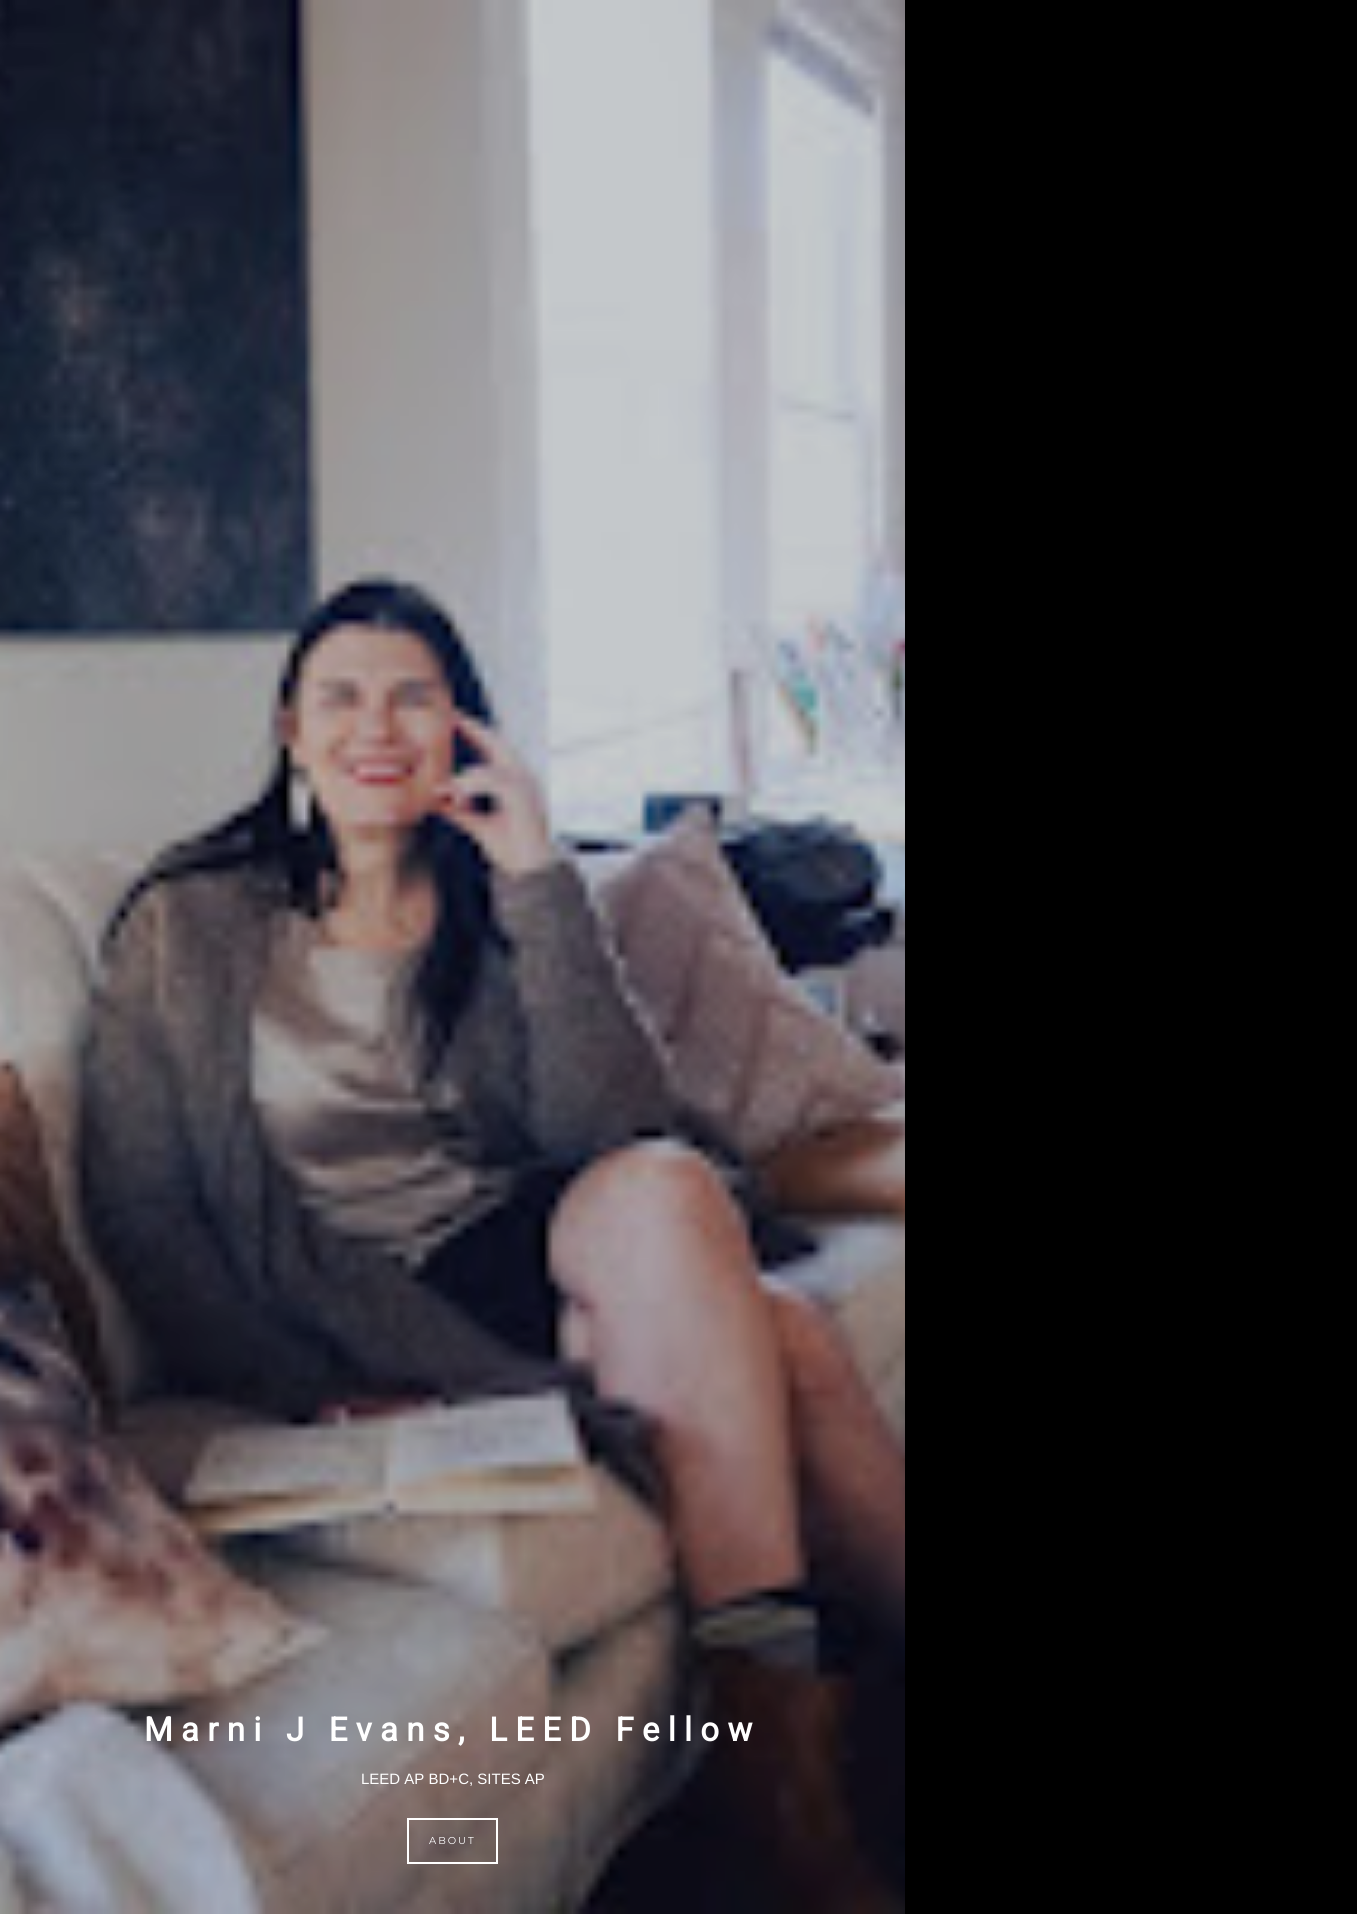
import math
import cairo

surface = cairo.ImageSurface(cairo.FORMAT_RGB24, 1357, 1914)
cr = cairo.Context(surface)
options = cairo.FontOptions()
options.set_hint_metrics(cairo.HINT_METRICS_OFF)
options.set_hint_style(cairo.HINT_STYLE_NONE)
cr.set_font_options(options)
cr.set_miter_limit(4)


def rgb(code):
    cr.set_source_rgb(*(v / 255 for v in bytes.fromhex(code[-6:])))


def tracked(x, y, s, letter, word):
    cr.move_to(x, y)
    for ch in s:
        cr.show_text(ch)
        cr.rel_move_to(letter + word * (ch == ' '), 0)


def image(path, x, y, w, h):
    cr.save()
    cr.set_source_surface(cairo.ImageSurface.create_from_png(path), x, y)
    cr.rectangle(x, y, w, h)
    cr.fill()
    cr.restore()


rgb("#000000")
cr.paint()
image("img/1.png", 0, 0, 905, 1914)
cr.rectangle(408, 1819, 89, 44)
rgb("#ffffff")
cr.stroke()
cr.select_font_face("Roboto", cairo.FONT_SLANT_NORMAL, cairo.FONT_WEIGHT_BOLD)
cr.set_font_size(33)
tracked(144, 1741, "Marni J Evans, LEED Fellow", 8.25, 0)
cr.select_font_face("Liberation Sans")
cr.set_font_size(15)
cr.move_to(361, 1784)
cr.show_text("LEED AP BD+C, SITES AP")
cr.select_font_face("Montserrat Thin")
cr.set_font_size(10)
tracked(429, 1844, "ABOUT", 2, 0)
surface.write_to_png("page.png")
